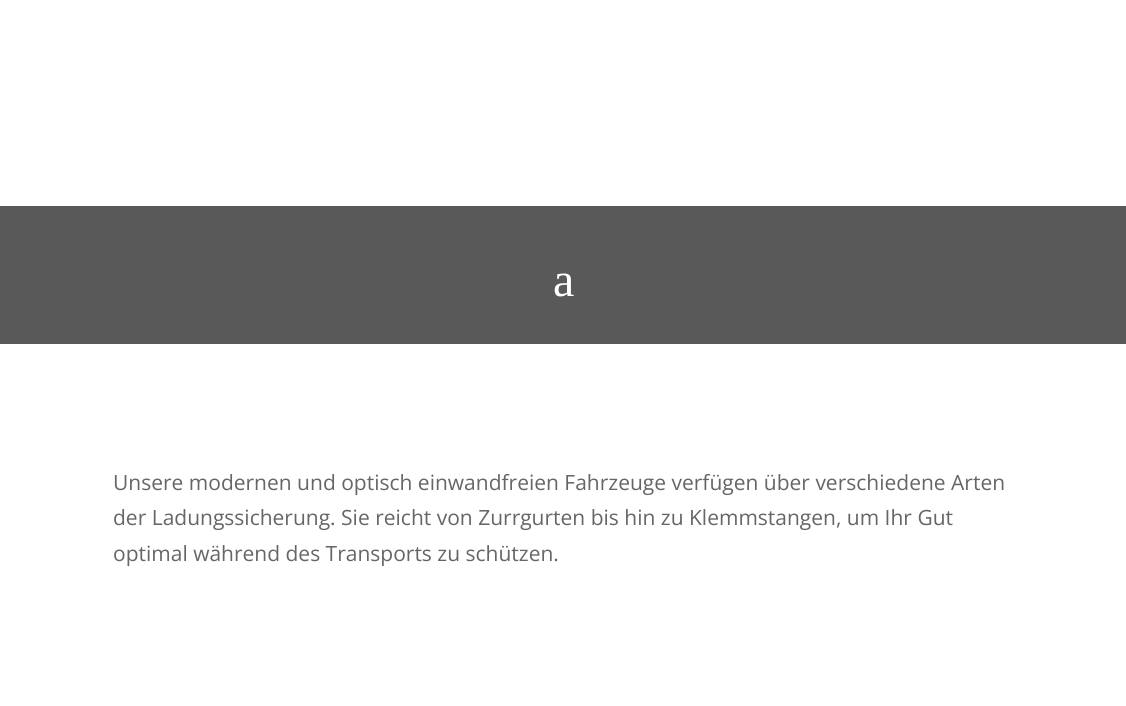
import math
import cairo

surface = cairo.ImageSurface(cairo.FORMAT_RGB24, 1126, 706)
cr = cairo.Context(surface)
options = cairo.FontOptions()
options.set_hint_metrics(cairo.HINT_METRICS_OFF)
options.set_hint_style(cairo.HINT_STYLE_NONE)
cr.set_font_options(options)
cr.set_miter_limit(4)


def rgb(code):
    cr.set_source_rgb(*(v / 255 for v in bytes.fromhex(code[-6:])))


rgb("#ffffff")
cr.paint()
rgb("#595959")
cr.rectangle(0, 206, 1126, 138)
cr.fill()
cr.select_font_face("Liberation Serif")
cr.set_font_size(48)
rgb("#ffffff")
cr.move_to(553, 296)
cr.show_text("a")
cr.select_font_face("Open Sans")
cr.set_font_size(21)
rgb("#666666")
for x, y, s in [
    (113, 490, "Unsere modernen und optisch einwandfreien Fahrzeuge verfügen über verschiedene Arten"),
    (113, 525, "der Ladungssicherung. Sie reicht von Zurrgurten bis hin zu Klemmstangen, um Ihr Gut"),
    (113, 561, "optimal während des Transports zu schützen."),
]:
    cr.move_to(x, y)
    cr.show_text(s)
surface.write_to_png("page.png")
